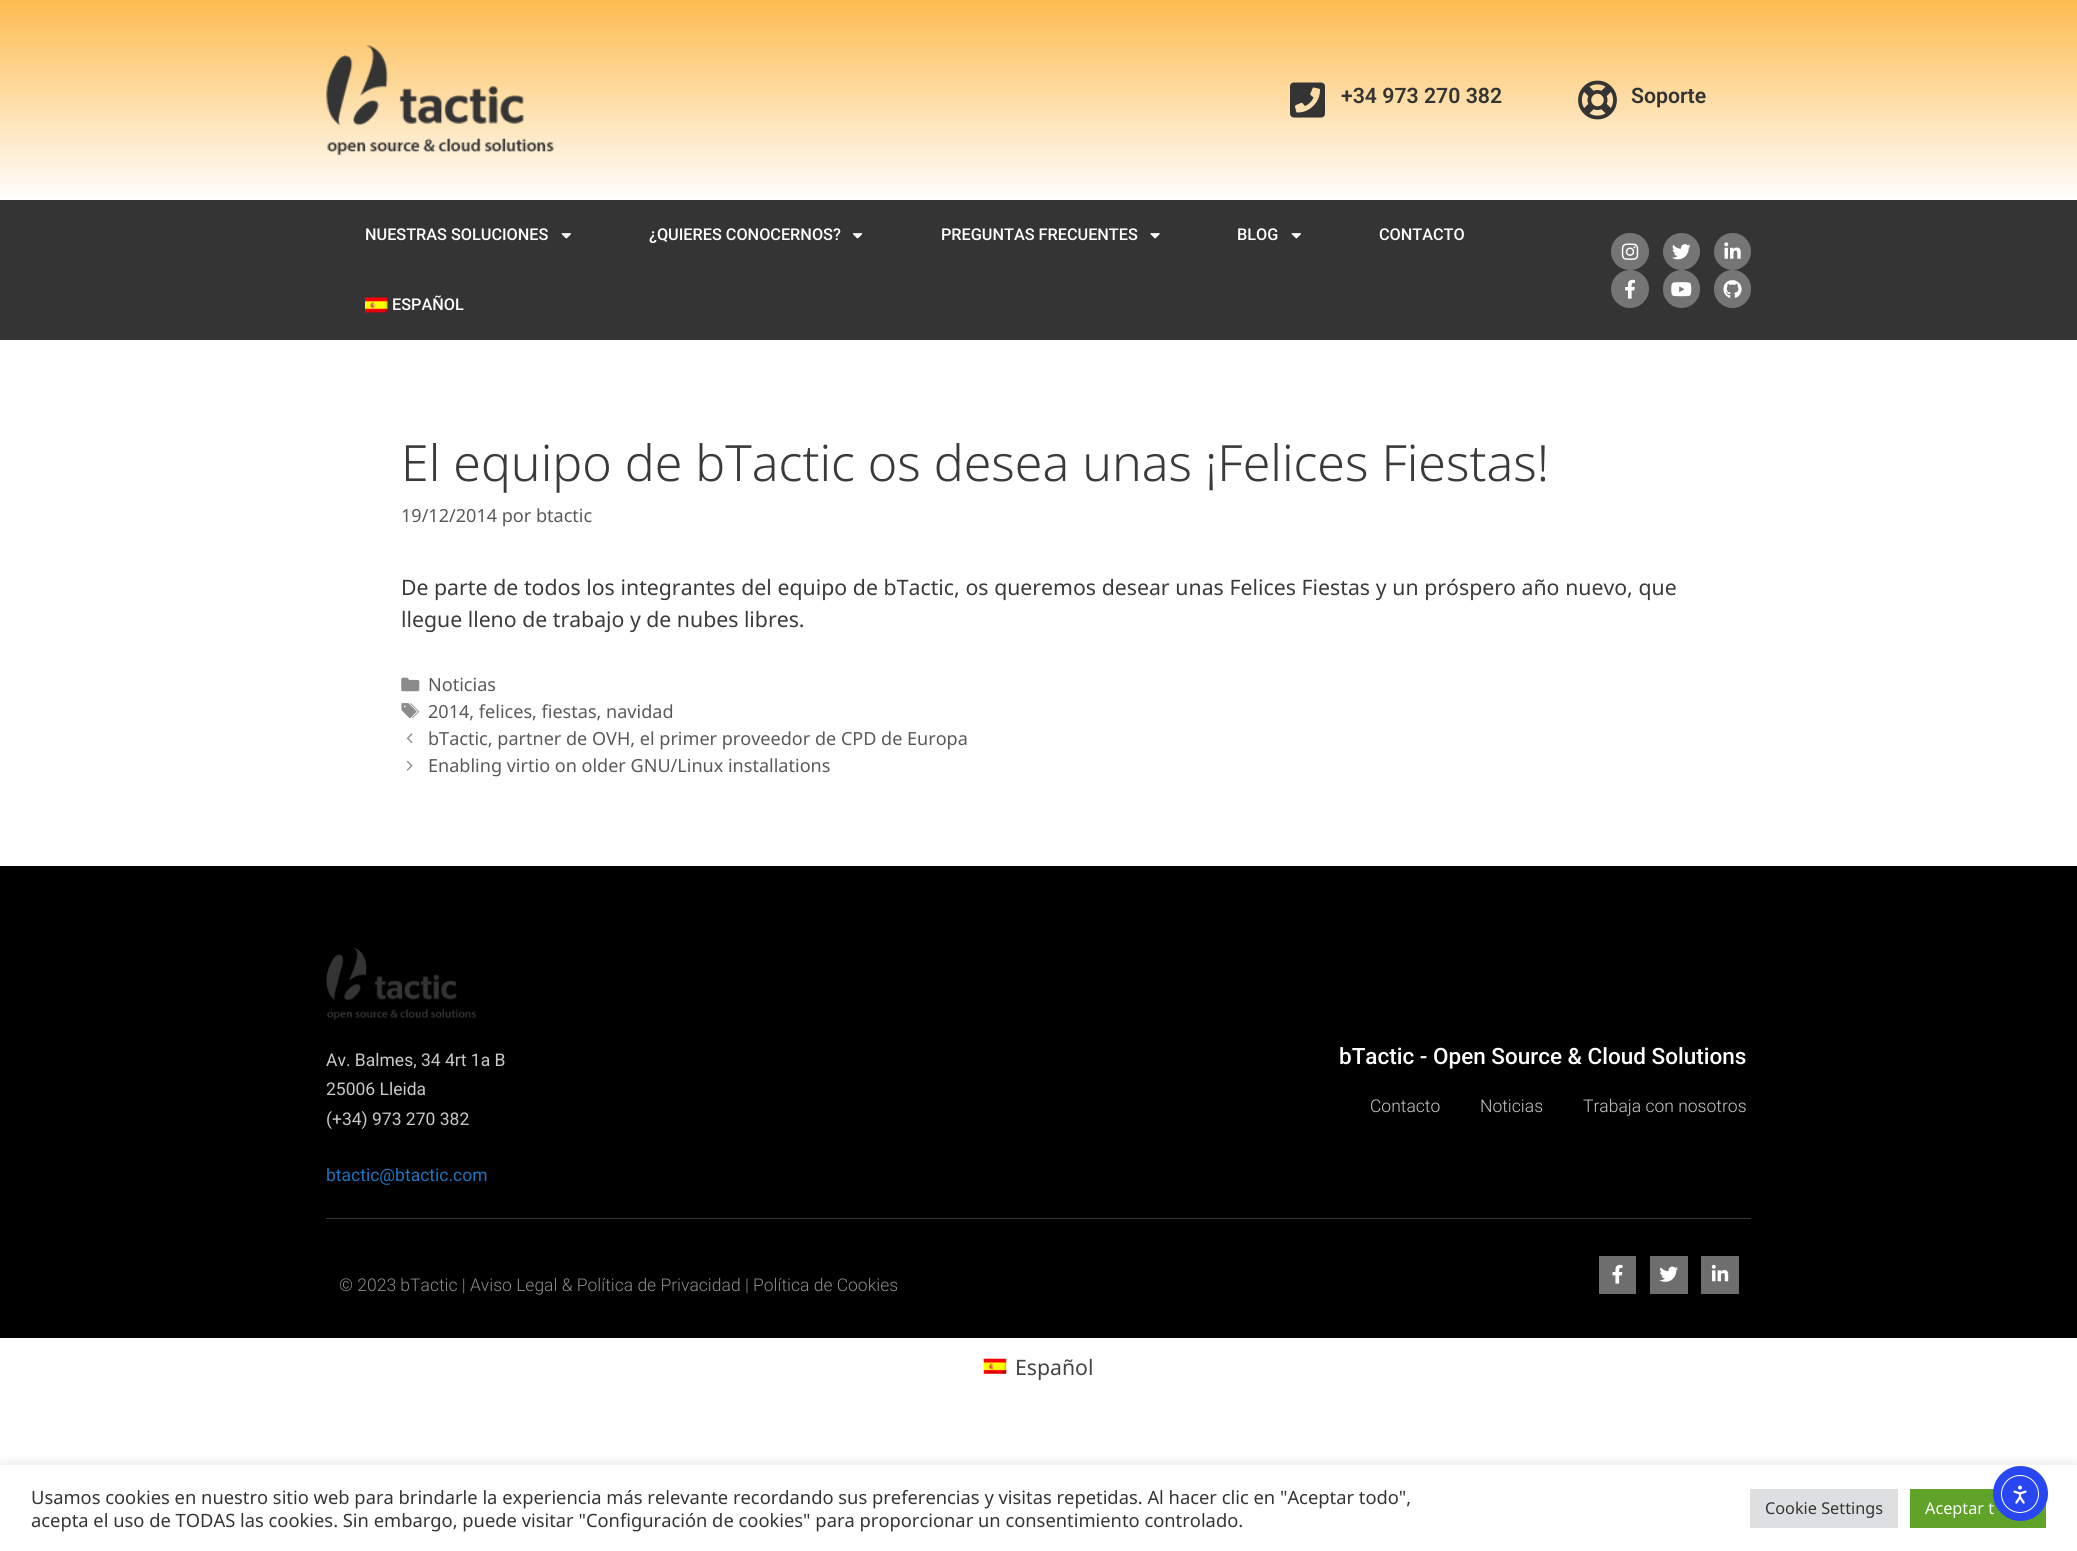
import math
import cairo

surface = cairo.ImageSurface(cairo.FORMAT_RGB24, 2077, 1551)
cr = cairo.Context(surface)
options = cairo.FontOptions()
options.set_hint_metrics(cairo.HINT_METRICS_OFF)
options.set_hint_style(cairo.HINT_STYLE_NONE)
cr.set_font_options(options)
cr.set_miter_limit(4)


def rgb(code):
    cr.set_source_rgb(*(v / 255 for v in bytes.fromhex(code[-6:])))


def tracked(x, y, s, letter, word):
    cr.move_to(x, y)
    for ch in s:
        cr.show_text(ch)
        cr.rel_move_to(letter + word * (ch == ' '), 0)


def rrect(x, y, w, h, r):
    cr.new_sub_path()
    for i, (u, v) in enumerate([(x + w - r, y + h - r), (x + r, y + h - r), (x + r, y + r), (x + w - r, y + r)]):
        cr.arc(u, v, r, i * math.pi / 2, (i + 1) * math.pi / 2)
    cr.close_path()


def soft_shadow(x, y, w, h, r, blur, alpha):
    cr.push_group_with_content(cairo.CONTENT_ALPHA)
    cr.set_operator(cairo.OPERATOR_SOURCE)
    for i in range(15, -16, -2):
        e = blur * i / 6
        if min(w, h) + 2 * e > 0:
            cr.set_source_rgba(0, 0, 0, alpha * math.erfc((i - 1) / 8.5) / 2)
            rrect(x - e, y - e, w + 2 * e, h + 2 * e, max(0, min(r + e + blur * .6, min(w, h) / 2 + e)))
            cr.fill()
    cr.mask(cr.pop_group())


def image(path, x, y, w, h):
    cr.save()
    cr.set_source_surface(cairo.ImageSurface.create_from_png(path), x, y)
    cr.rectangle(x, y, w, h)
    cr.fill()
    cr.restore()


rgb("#ffffff")
cr.paint()
gradient = cairo.LinearGradient(1039, 0, 1039, 200)
gradient.add_color_stop_rgba(0, 0.992, 0.737, 0.31, 1)
gradient.add_color_stop_rgba(1, 1, 1, 1, 1)
cr.set_source(gradient)
cr.rectangle(0, 0, 2077, 197)
cr.fill()
image("img/1.png", 326, 45, 228, 110)
image("img/2.png", 1290, 82, 35, 36)
image("img/3.png", 1578, 80, 39, 40)
rgb("#343434")
cr.rectangle(0, 200, 2077, 140)
cr.fill()
image("img/4.png", 561, 233, 10, 6)
image("img/5.png", 852, 233, 11, 6)
image("img/6.png", 1150, 233, 10, 6)
image("img/4.png", 1291, 233, 10, 6)
image("img/7.png", 365, 297, 23, 16)
rgb("#757575")
rrect(1611, 233, 38, 37, 18.5)
cr.fill()
image("img/8.png", 1621, 243, 18, 17)
cr.arc(1681.5, 251.5, 18.5, 0, 2 * math.pi)
cr.fill()
image("img/9.png", 1672, 244, 19, 16)
cr.arc(1732.5, 251.5, 18.5, 0, 2 * math.pi)
cr.fill()
image("img/10.png", 1724, 242, 17, 17)
cr.arc(1630, 289, 19, 0, 2 * math.pi)
cr.fill()
image("img/11.png", 1625, 279, 10, 20)
rrect(1663, 270, 37, 38, 18.5)
cr.fill()
image("img/12.png", 1671, 282, 21, 15)
rrect(1714, 270, 37, 38, 18.5)
cr.fill()
image("img/13.png", 1723, 280, 19, 18)
image("img/14.png", 401, 677, 19, 15)
image("img/15.png", 401, 703, 19, 16)
image("img/16.png", 406, 733, 7, 11)
image("img/17.png", 406, 760, 7, 11)
rgb("#000000")
cr.rectangle(0, 866, 2077, 472)
cr.fill()
image("img/18.png", 326, 947, 151, 73)
rgb("#363636")
cr.rectangle(326, 1218, 1425, 1)
cr.fill()
rgb("#6e6e6e")
cr.rectangle(1599, 1256, 37, 38)
cr.fill()
image("img/19.png", 1612, 1264, 11, 20)
cr.rectangle(1650, 1256, 38, 38)
cr.fill()
image("img/20.png", 1659, 1266, 19, 16)
cr.rectangle(1701, 1256, 38, 38)
cr.fill()
image("img/21.png", 1711, 1264, 18, 18)
image("img/22.png", 983, 1358, 24, 16)
cr.save()
cr.rectangle(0, 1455, 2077, 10)
cr.clip()
rgb("#acabab")
soft_shadow(0, 1464, 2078, 86, 0, 6, 0.3)
cr.restore()
rgb("#dedfe0")
cr.rectangle(1750, 1489, 148, 39)
cr.fill()
rgb("#61a229")
cr.rectangle(1910, 1489, 136, 39)
cr.fill()
cr.select_font_face("Roboto SemiBold")
cr.set_font_size(21.25)
rgb("#343434")
cr.move_to(1341, 103)
cr.show_text("+34 973 270 382")
cr.move_to(1631, 103)
cr.show_text("Soporte")
cr.select_font_face("Roboto Medium")
cr.set_font_size(16.25)
rgb("#ffffff")
for x, y, s in [
    (365, 240, "NUESTRAS SOLUCIONES"),
    (649, 240, "¿QUIERES CONOCERNOS?"),
    (941, 240, "PREGUNTAS FRECUENTES"),
    (1237, 240, "BLOG"),
    (1379, 240, "CONTACTO"),
    (392, 310, "ESPAÑOL"),
]:
    cr.move_to(x, y)
    cr.show_text(s)
cr.select_font_face("Noto Sans Light")
cr.set_font_size(50)
rgb("#3a3a3a")
cr.move_to(401, 481)
cr.show_text("El equipo de bTactic os desea unas ¡Felices Fiestas!")
cr.select_font_face("Noto Sans")
cr.set_font_size(18.05)
rgb("#595959")
cr.move_to(401, 522)
cr.show_text("19/12/2014 por btactic")
cr.set_font_size(21.25)
rgb("#3a3a3a")
cr.move_to(401, 595)
cr.show_text("De")
tracked(434, 595, "parte de todos los integrantes del equipo de bTactic, os queremos desear unas Felices Fiestas y un próspero año nuevo, que", 0, 0.2)
cr.move_to(401, 627)
cr.show_text("llegue lleno de trabajo y de nubes libres.")
cr.set_font_size(18.05)
rgb("#595959")
for x, y, s in [
    (428, 691, "Noticias"),
    (428, 718, "2014, felices, fiestas, navidad"),
    (428, 745, "bTactic, partner de OVH, el primer proveedor de CPD de Europa"),
    (428, 772, "Enabling virtio on older GNU/Linux installations"),
]:
    cr.move_to(x, y)
    cr.show_text(s)
cr.select_font_face("Roboto")
cr.set_font_size(17.5)
rgb("#c9c9c9")
for x, y, s in [
    (326, 1066, "Av. Balmes, 34 4rt 1a B"),
    (326, 1095, "25006 Lleida"),
    (326, 1125, "(+34) 973 270 382"),
]:
    cr.move_to(x, y)
    cr.show_text(s)
rgb("#1e73be")
cr.move_to(326, 1181)
cr.show_text("btactic@btactic.com")
cr.select_font_face("Roboto Medium")
cr.set_font_size(22.5)
rgb("#ffffff")
cr.move_to(1339, 1064)
cr.show_text("bTactic - Open Source & Cloud Solutions")
cr.select_font_face("Roboto Light")
cr.set_font_size(17.5)
rgb("#c9c9c9")
for x, y, s in [
    (1370, 1112, "Contacto"),
    (1480, 1112, "Noticias"),
    (1583, 1112, "Trabaja con nosotros"),
]:
    cr.move_to(x, y)
    cr.show_text(s)
rgb("#8c8c8c")
cr.move_to(339, 1291)
cr.show_text("© 2023 bTactic | Aviso Legal & Política de Privacidad | Política de Cookies")
cr.select_font_face("Noto Sans")
cr.set_font_size(21.25)
rgb("#444444")
cr.move_to(1015, 1375)
cr.show_text("Español")
cr.set_font_size(18.33)
rgb("#343434")
cr.move_to(31, 1504)
cr.show_text("Usamos cookies en nuestro sitio web para brindarle la experiencia más relevante recordando sus preferencias y visitas repetidas. Al hacer clic en \"Aceptar todo\",")
cr.move_to(31, 1527)
cr.show_text("acepta el uso de TODAS las cookies. Sin embargo, puede visitar \"Configuración de cookies\" para proporcionar un consentimiento controlado.")
cr.set_font_size(16.25)
cr.move_to(1765, 1514)
cr.show_text("Cookie Settings")
rgb("#ffffff")
cr.move_to(1925, 1514)
cr.show_text("Aceptar t")
rgb("#2847f3")
cr.new_path()
cr.arc(2020.5, 1493.5, 27.5, 0, 2 * math.pi)
cr.fill()
cr.arc(2020, 1494, 18.5, 0, 2 * math.pi)
rgb("#ffffff")
cr.set_line_width(1)
cr.stroke()
image("img/23.png", 2013, 1485, 14, 19)
surface.write_to_png("page.png")
